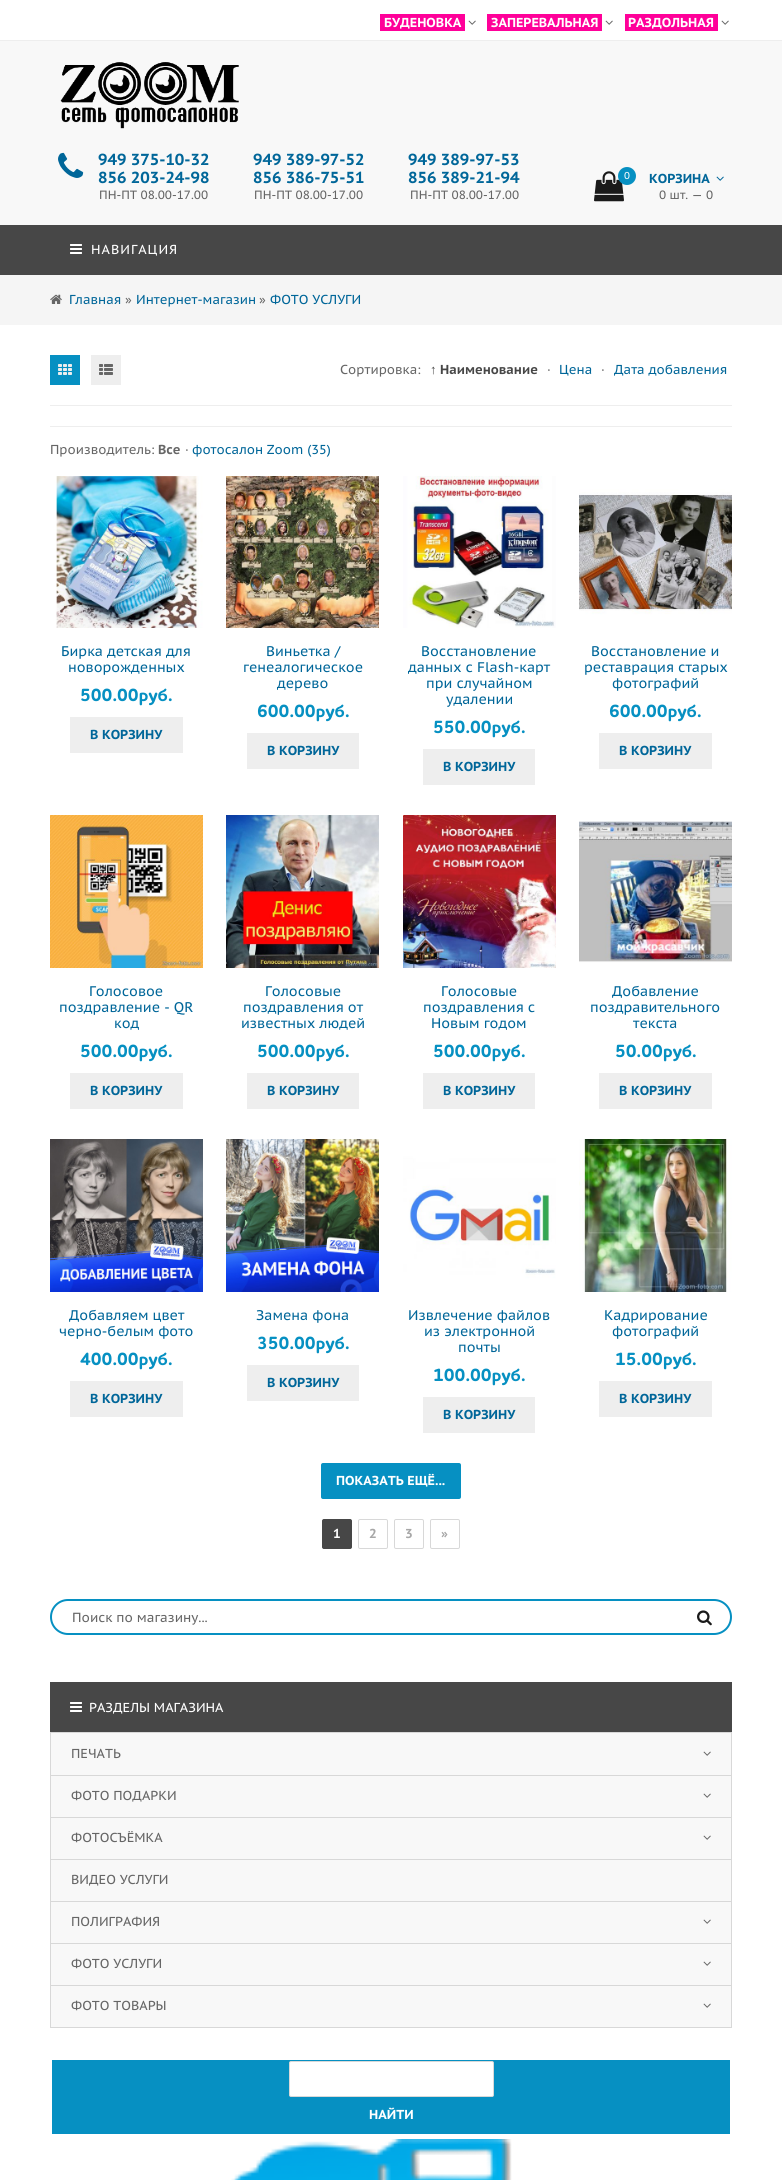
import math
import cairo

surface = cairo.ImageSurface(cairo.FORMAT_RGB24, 782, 2180)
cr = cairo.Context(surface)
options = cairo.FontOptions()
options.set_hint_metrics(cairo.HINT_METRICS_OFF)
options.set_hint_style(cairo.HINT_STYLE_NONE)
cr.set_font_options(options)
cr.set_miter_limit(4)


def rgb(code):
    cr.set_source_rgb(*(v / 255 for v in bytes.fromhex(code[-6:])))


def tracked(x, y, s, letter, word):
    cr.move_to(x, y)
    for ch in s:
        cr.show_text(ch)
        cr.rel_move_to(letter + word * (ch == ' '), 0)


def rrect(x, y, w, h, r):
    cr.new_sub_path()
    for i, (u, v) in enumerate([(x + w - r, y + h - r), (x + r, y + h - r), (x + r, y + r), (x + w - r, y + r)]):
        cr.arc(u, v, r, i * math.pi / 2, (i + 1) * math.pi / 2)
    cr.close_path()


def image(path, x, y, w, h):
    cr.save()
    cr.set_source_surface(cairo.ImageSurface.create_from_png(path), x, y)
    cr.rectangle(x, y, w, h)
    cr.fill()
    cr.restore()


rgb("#ffffff")
cr.paint()
rgb("#eeeeee")
cr.rectangle(0, 40, 782, 1)
cr.fill()
rgb("#ff0099")
cr.rectangle(380, 14, 85, 17)
cr.fill()
image("img/1.png", 468, 20, 8, 5)
cr.rectangle(487, 14, 115, 17)
cr.fill()
image("img/1.png", 605, 20, 8, 5)
cr.rectangle(625, 14, 93, 17)
cr.fill()
image("img/1.png", 721, 20, 8, 5)
rgb("#f8f8f8")
cr.rectangle(0, 41, 782, 184)
cr.fill()
image("img/2.png", 60, 62, 179, 67)
image("img/3.png", 58, 152, 26, 26)
image("img/4.png", 594, 171, 30, 31)
rgb("#0690c2")
cr.arc(627, 176, 9, 0, 2 * math.pi)
cr.fill()
image("img/5.png", 716, 176, 8, 5)
rgb("#474747")
cr.rectangle(0, 225, 782, 50)
cr.fill()
image("img/6.png", 70, 244, 12, 10)
rgb("#f5f5f5")
cr.rectangle(0, 275, 782, 50)
cr.fill()
image("img/7.png", 50, 294, 12, 10)
rgb("#eeeeee")
cr.rectangle(50, 405, 682, 1)
cr.fill()
rgb("#0690c2")
cr.rectangle(50, 355, 30, 30)
cr.fill()
image("img/8.png", 58, 364, 14, 11)
rgb("#eeeeee")
cr.rectangle(91, 355, 30, 30)
cr.fill()
image("img/9.png", 99, 364, 14, 11)
cr.rectangle(50, 426, 682, 1)
cr.fill()
image("img/10.png", 50, 476, 153, 152)
cr.rectangle(70, 717, 113, 36)
cr.fill()
image("img/11.png", 226, 476, 153, 152)
cr.rectangle(247, 733, 112, 36)
cr.fill()
image("img/12.png", 403, 476, 153, 152)
cr.rectangle(423, 749, 112, 36)
cr.fill()
image("img/13.png", 579, 476, 153, 152)
cr.rectangle(599, 733, 113, 36)
cr.fill()
image("img/14.png", 50, 815, 153, 153)
cr.rectangle(70, 1073, 113, 36)
cr.fill()
image("img/15.png", 226, 815, 153, 153)
cr.rectangle(247, 1073, 112, 36)
cr.fill()
image("img/16.png", 403, 815, 153, 153)
cr.rectangle(423, 1073, 112, 36)
cr.fill()
image("img/17.png", 579, 815, 153, 153)
cr.rectangle(599, 1073, 113, 36)
cr.fill()
image("img/18.png", 50, 1139, 153, 153)
cr.rectangle(70, 1381, 113, 36)
cr.fill()
image("img/19.png", 226, 1139, 153, 153)
cr.rectangle(247, 1365, 112, 36)
cr.fill()
image("img/20.png", 403, 1139, 153, 153)
cr.rectangle(423, 1397, 112, 36)
cr.fill()
image("img/21.png", 579, 1139, 153, 153)
cr.rectangle(599, 1381, 113, 36)
cr.fill()
rgb("#0690c2")
rrect(321, 1463, 140, 36, 2)
cr.fill()
rgb("#474747")
rrect(322.5, 1519.5, 29, 29, 1.5)
cr.fill_preserve()
cr.set_line_width(1)
cr.stroke()
rrect(358.5, 1519.5, 29, 29, 1.5)
rgb("#d8d8d8")
cr.stroke()
rrect(394.5, 1519.5, 29, 29, 1.5)
cr.stroke()
rrect(430.5, 1519.5, 29, 29, 1.5)
cr.stroke()
rrect(51, 1600, 680, 34, 17)
rgb("#0690c2")
cr.set_line_width(2)
cr.stroke()
image("img/22.png", 697, 1610, 15, 16)
rgb("#474747")
cr.rectangle(50, 1682, 682, 50)
cr.fill()
image("img/6.png", 70, 1702, 12, 10)
rgb("#f8f8f8")
cr.rectangle(50.5, 1732.5, 681, 295)
cr.fill_preserve()
rgb("#d8d8d8")
cr.set_line_width(1)
cr.stroke()
cr.rectangle(51, 1775, 680, 1)
cr.fill()
image("img/23.png", 703, 1751, 8, 5)
cr.rectangle(51, 1817, 680, 1)
cr.fill()
image("img/23.png", 703, 1793, 8, 5)
cr.rectangle(51, 1859, 680, 1)
cr.fill()
image("img/23.png", 703, 1835, 8, 5)
cr.rectangle(51, 1901, 680, 1)
cr.fill()
cr.rectangle(51, 1943, 680, 1)
cr.fill()
image("img/23.png", 703, 1919, 8, 5)
cr.rectangle(51, 1985, 680, 1)
cr.fill()
image("img/23.png", 703, 1961, 8, 5)
image("img/23.png", 703, 2003, 8, 5)
rgb("#0690c2")
cr.rectangle(52, 2060, 678, 74)
cr.fill()
rgb("#ffffff")
rrect(289.5, 2061.5, 204, 35, 1.5)
cr.fill_preserve()
rgb("#d8d8d8")
cr.stroke()
image("img/24.png", 231, 2139, 281, 41)
cr.select_font_face("PT Sans Caption", cairo.FONT_SLANT_NORMAL, cairo.FONT_WEIGHT_BOLD)
cr.set_font_size(13)
rgb("#ffffff")
for x, y, s in [
    (384, 27, "БУДЕНОВКА"),
    (491, 27, "ЗАПЕРЕВАЛЬНАЯ"),
    (628, 27, "РАЗДОЛЬНАЯ"),
]:
    cr.move_to(x, y)
    cr.show_text(s)
cr.set_font_size(16)
rgb("#006699")
cr.move_to(98, 165)
cr.show_text("949 375-10-32")
cr.move_to(98, 183)
cr.show_text("856 203-24-98")
cr.select_font_face("PT Sans Caption")
cr.set_font_size(12)
rgb("#666666")
cr.move_to(99, 199)
cr.show_text("ПН-ПТ 08.00-17.00")
cr.select_font_face("PT Sans Caption", cairo.FONT_SLANT_NORMAL, cairo.FONT_WEIGHT_BOLD)
cr.set_font_size(16)
rgb("#006699")
cr.move_to(253, 165)
cr.show_text("949 389-97-52")
cr.move_to(253, 183)
cr.show_text("856 386-75-51")
cr.select_font_face("PT Sans Caption")
cr.set_font_size(12)
rgb("#666666")
cr.move_to(254, 199)
cr.show_text("ПН-ПТ 08.00-17.00")
cr.select_font_face("PT Sans Caption", cairo.FONT_SLANT_NORMAL, cairo.FONT_WEIGHT_BOLD)
cr.set_font_size(16)
rgb("#006699")
cr.move_to(408, 165)
cr.show_text("949 389-97-53")
cr.move_to(408, 183)
cr.show_text("856 389-21-94")
cr.select_font_face("PT Sans Caption")
cr.set_font_size(12)
rgb("#666666")
cr.move_to(410, 199)
cr.show_text("ПН-ПТ 08.00-17.00")
cr.set_font_size(10)
rgb("#ffffff")
cr.move_to(624, 179)
cr.show_text("0")
cr.select_font_face("PT Sans Caption", cairo.FONT_SLANT_NORMAL, cairo.FONT_WEIGHT_BOLD)
cr.set_font_size(13)
rgb("#006699")
cr.move_to(649, 183)
cr.show_text("КОРЗИНА")
cr.select_font_face("PT Sans Caption")
cr.set_font_size(12)
rgb("#666666")
cr.move_to(659, 199)
cr.show_text("0 шт. — 0")
cr.set_font_size(13)
rgb("#ffffff")
tracked(91, 254, "НАВИГАЦИЯ", 1, 0)
rgb("#006699")
cr.move_to(69, 304)
cr.show_text("Главная")
rgb("#666666")
cr.move_to(125, 304)
cr.show_text("»")
rgb("#006699")
cr.move_to(136, 304)
cr.show_text("Интернет-магазин")
rgb("#666666")
cr.move_to(259, 304)
cr.show_text("»")
rgb("#006699")
cr.move_to(270, 304)
cr.show_text("ФОТО УСЛУГИ")
rgb("#666666")
cr.move_to(340, 374)
cr.show_text("Сортировка:")
cr.select_font_face("Liberation Serif", cairo.FONT_SLANT_NORMAL, cairo.FONT_WEIGHT_BOLD)
rgb("#474747")
cr.move_to(430, 374)
cr.show_text("↑")
cr.select_font_face("PT Sans Caption", cairo.FONT_SLANT_NORMAL, cairo.FONT_WEIGHT_BOLD)
cr.move_to(440, 374)
cr.show_text("Наименование")
cr.select_font_face("PT Sans Caption")
rgb("#666666")
cr.move_to(547, 374)
cr.show_text("·")
rgb("#006699")
cr.move_to(559, 374)
cr.show_text("Цена")
rgb("#666666")
cr.move_to(601, 374)
cr.show_text("·")
rgb("#006699")
cr.move_to(614, 374)
cr.show_text("Дата добавления")
rgb("#666666")
cr.move_to(50, 454)
cr.show_text("Производитель:")
cr.select_font_face("PT Sans Caption", cairo.FONT_SLANT_NORMAL, cairo.FONT_WEIGHT_BOLD)
cr.move_to(158, 454)
cr.show_text("Все")
cr.select_font_face("PT Sans Caption")
cr.move_to(185, 454)
cr.show_text("·")
rgb("#006699")
cr.move_to(192, 454)
cr.show_text("фотосалон Zoom (35)")
cr.set_font_size(14)
cr.move_to(61, 656)
cr.show_text("Бирка детская для")
cr.move_to(68, 672)
cr.show_text("новорожденных")
cr.select_font_face("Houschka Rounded", cairo.FONT_SLANT_NORMAL, cairo.FONT_WEIGHT_BOLD)
cr.set_font_size(18)
rgb("#0690c2")
cr.move_to(80, 701)
cr.show_text("500.00руб.")
cr.select_font_face("PT Sans Caption", cairo.FONT_SLANT_NORMAL, cairo.FONT_WEIGHT_BOLD)
cr.set_font_size(13)
rgb("#006699")
cr.move_to(90, 739)
cr.show_text("В КОРЗИНУ")
cr.select_font_face("PT Sans Caption")
cr.set_font_size(14)
for x, y, s in [
    (266, 656, "Виньетка /"),
    (243, 672, "генеалогическое"),
    (277, 688, "дерево"),
]:
    cr.move_to(x, y)
    cr.show_text(s)
cr.select_font_face("Houschka Rounded", cairo.FONT_SLANT_NORMAL, cairo.FONT_WEIGHT_BOLD)
cr.set_font_size(18)
rgb("#0690c2")
cr.move_to(257, 717)
cr.show_text("600.00руб.")
cr.select_font_face("PT Sans Caption", cairo.FONT_SLANT_NORMAL, cairo.FONT_WEIGHT_BOLD)
cr.set_font_size(13)
rgb("#006699")
cr.move_to(267, 755)
cr.show_text("В КОРЗИНУ")
cr.select_font_face("PT Sans Caption")
cr.set_font_size(14)
for x, y, s in [
    (421, 656, "Восстановление"),
    (408, 672, "данных с Flash-карт"),
    (426, 688, "при случайном"),
    (446, 704, "удалении"),
]:
    cr.move_to(x, y)
    cr.show_text(s)
cr.select_font_face("Houschka Rounded", cairo.FONT_SLANT_NORMAL, cairo.FONT_WEIGHT_BOLD)
cr.set_font_size(18)
rgb("#0690c2")
cr.move_to(433, 733)
cr.show_text("550.00руб.")
cr.select_font_face("PT Sans Caption", cairo.FONT_SLANT_NORMAL, cairo.FONT_WEIGHT_BOLD)
cr.set_font_size(13)
rgb("#006699")
cr.move_to(443, 771)
cr.show_text("В КОРЗИНУ")
cr.select_font_face("PT Sans Caption")
cr.set_font_size(14)
for x, y, s in [
    (591, 656, "Восстановление и"),
    (584, 672, "реставрация старых"),
    (612, 688, "фотографий"),
]:
    cr.move_to(x, y)
    cr.show_text(s)
cr.select_font_face("Houschka Rounded", cairo.FONT_SLANT_NORMAL, cairo.FONT_WEIGHT_BOLD)
cr.set_font_size(18)
rgb("#0690c2")
cr.move_to(609, 717)
cr.show_text("600.00руб.")
cr.select_font_face("PT Sans Caption", cairo.FONT_SLANT_NORMAL, cairo.FONT_WEIGHT_BOLD)
cr.set_font_size(13)
rgb("#006699")
cr.move_to(619, 755)
cr.show_text("В КОРЗИНУ")
cr.select_font_face("PT Sans Caption")
cr.set_font_size(14)
for x, y, s in [
    (89, 996, "Голосовое"),
    (59, 1012, "поздравление - QR"),
    (114, 1028, "код"),
]:
    cr.move_to(x, y)
    cr.show_text(s)
cr.select_font_face("Houschka Rounded", cairo.FONT_SLANT_NORMAL, cairo.FONT_WEIGHT_BOLD)
cr.set_font_size(18)
rgb("#0690c2")
cr.move_to(80, 1057)
cr.show_text("500.00руб.")
cr.select_font_face("PT Sans Caption", cairo.FONT_SLANT_NORMAL, cairo.FONT_WEIGHT_BOLD)
cr.set_font_size(13)
rgb("#006699")
cr.move_to(90, 1095)
cr.show_text("В КОРЗИНУ")
cr.select_font_face("PT Sans Caption")
cr.set_font_size(14)
for x, y, s in [
    (265, 996, "Голосовые"),
    (243, 1012, "поздравления от"),
    (241, 1028, "известных людей"),
]:
    cr.move_to(x, y)
    cr.show_text(s)
cr.select_font_face("Houschka Rounded", cairo.FONT_SLANT_NORMAL, cairo.FONT_WEIGHT_BOLD)
cr.set_font_size(18)
rgb("#0690c2")
cr.move_to(257, 1057)
cr.show_text("500.00руб.")
cr.select_font_face("PT Sans Caption", cairo.FONT_SLANT_NORMAL, cairo.FONT_WEIGHT_BOLD)
cr.set_font_size(13)
rgb("#006699")
cr.move_to(267, 1095)
cr.show_text("В КОРЗИНУ")
cr.select_font_face("PT Sans Caption")
cr.set_font_size(14)
for x, y, s in [
    (441, 996, "Голосовые"),
    (423, 1012, "поздравления с"),
    (431, 1028, "Новым годом"),
]:
    cr.move_to(x, y)
    cr.show_text(s)
cr.select_font_face("Houschka Rounded", cairo.FONT_SLANT_NORMAL, cairo.FONT_WEIGHT_BOLD)
cr.set_font_size(18)
rgb("#0690c2")
cr.move_to(433, 1057)
cr.show_text("500.00руб.")
cr.select_font_face("PT Sans Caption", cairo.FONT_SLANT_NORMAL, cairo.FONT_WEIGHT_BOLD)
cr.set_font_size(13)
rgb("#006699")
cr.move_to(443, 1095)
cr.show_text("В КОРЗИНУ")
cr.select_font_face("PT Sans Caption")
cr.set_font_size(14)
for x, y, s in [
    (612, 996, "Добавление"),
    (590, 1012, "поздравительного"),
    (633, 1028, "текста"),
]:
    cr.move_to(x, y)
    cr.show_text(s)
cr.select_font_face("Houschka Rounded", cairo.FONT_SLANT_NORMAL, cairo.FONT_WEIGHT_BOLD)
cr.set_font_size(18)
rgb("#0690c2")
cr.move_to(615, 1057)
cr.show_text("50.00руб.")
cr.select_font_face("PT Sans Caption", cairo.FONT_SLANT_NORMAL, cairo.FONT_WEIGHT_BOLD)
cr.set_font_size(13)
rgb("#006699")
cr.move_to(619, 1095)
cr.show_text("В КОРЗИНУ")
cr.select_font_face("PT Sans Caption")
cr.set_font_size(14)
cr.move_to(69, 1320)
cr.show_text("Добавляем цвет")
cr.move_to(59, 1336)
cr.show_text("черно-белым фото")
cr.select_font_face("Houschka Rounded", cairo.FONT_SLANT_NORMAL, cairo.FONT_WEIGHT_BOLD)
cr.set_font_size(18)
rgb("#0690c2")
cr.move_to(80, 1365)
cr.show_text("400.00руб.")
cr.select_font_face("PT Sans Caption", cairo.FONT_SLANT_NORMAL, cairo.FONT_WEIGHT_BOLD)
cr.set_font_size(13)
rgb("#006699")
cr.move_to(90, 1403)
cr.show_text("В КОРЗИНУ")
cr.select_font_face("PT Sans Caption")
cr.set_font_size(14)
cr.move_to(256, 1320)
cr.show_text("Замена фона")
cr.select_font_face("Houschka Rounded", cairo.FONT_SLANT_NORMAL, cairo.FONT_WEIGHT_BOLD)
cr.set_font_size(18)
rgb("#0690c2")
cr.move_to(257, 1349)
cr.show_text("350.00руб.")
cr.select_font_face("PT Sans Caption", cairo.FONT_SLANT_NORMAL, cairo.FONT_WEIGHT_BOLD)
cr.set_font_size(13)
rgb("#006699")
cr.move_to(267, 1387)
cr.show_text("В КОРЗИНУ")
cr.select_font_face("PT Sans Caption")
cr.set_font_size(14)
for x, y, s in [
    (408, 1320, "Извлечение файлов"),
    (424, 1336, "из электронной"),
    (458, 1352, "почты"),
]:
    cr.move_to(x, y)
    cr.show_text(s)
cr.select_font_face("Houschka Rounded", cairo.FONT_SLANT_NORMAL, cairo.FONT_WEIGHT_BOLD)
cr.set_font_size(18)
rgb("#0690c2")
cr.move_to(433, 1381)
cr.show_text("100.00руб.")
cr.select_font_face("PT Sans Caption", cairo.FONT_SLANT_NORMAL, cairo.FONT_WEIGHT_BOLD)
cr.set_font_size(13)
rgb("#006699")
cr.move_to(443, 1419)
cr.show_text("В КОРЗИНУ")
cr.select_font_face("PT Sans Caption")
cr.set_font_size(14)
cr.move_to(604, 1320)
cr.show_text("Кадрирование")
cr.move_to(612, 1336)
cr.show_text("фотографий")
cr.select_font_face("Houschka Rounded", cairo.FONT_SLANT_NORMAL, cairo.FONT_WEIGHT_BOLD)
cr.set_font_size(18)
rgb("#0690c2")
cr.move_to(615, 1365)
cr.show_text("15.00руб.")
cr.select_font_face("PT Sans Caption", cairo.FONT_SLANT_NORMAL, cairo.FONT_WEIGHT_BOLD)
cr.set_font_size(13)
rgb("#006699")
cr.move_to(619, 1403)
cr.show_text("В КОРЗИНУ")
rgb("#ffffff")
cr.move_to(336, 1485)
cr.show_text("ПОКАЗАТЬ ЕЩЁ...")
cr.move_to(333, 1538)
cr.show_text("1")
rgb("#a7a7a7")
for x, y, s in [
    (369, 1538, "2"),
    (405, 1538, "3"),
    (441, 1538, "»"),
]:
    cr.move_to(x, y)
    cr.show_text(s)
cr.select_font_face("PT Sans Caption")
cr.set_font_size(13.25)
rgb("#666666")
cr.move_to(72, 1622)
cr.show_text("Поиск по магазину...")
cr.set_font_size(13)
rgb("#ffffff")
cr.move_to(89, 1712)
cr.show_text("РАЗДЕЛЫ МАГАЗИНА")
rgb("#666666")
for x, y, s in [
    (71, 1758, "ПЕЧАТЬ"),
    (71, 1800, "ФОТО ПОДАРКИ"),
    (71, 1842, "ФОТОСЪЁМКА"),
    (71, 1884, "ВИДЕО УСЛУГИ"),
    (71, 1926, "ПОЛИГРАФИЯ"),
    (71, 1968, "ФОТО УСЛУГИ"),
    (71, 2010, "ФОТО ТОВАРЫ"),
]:
    cr.move_to(x, y)
    cr.show_text(s)
cr.select_font_face("PT Sans Caption", cairo.FONT_SLANT_NORMAL, cairo.FONT_WEIGHT_BOLD)
rgb("#ffffff")
cr.move_to(369, 2119)
cr.show_text("НАЙТИ")
surface.write_to_png("page.png")
